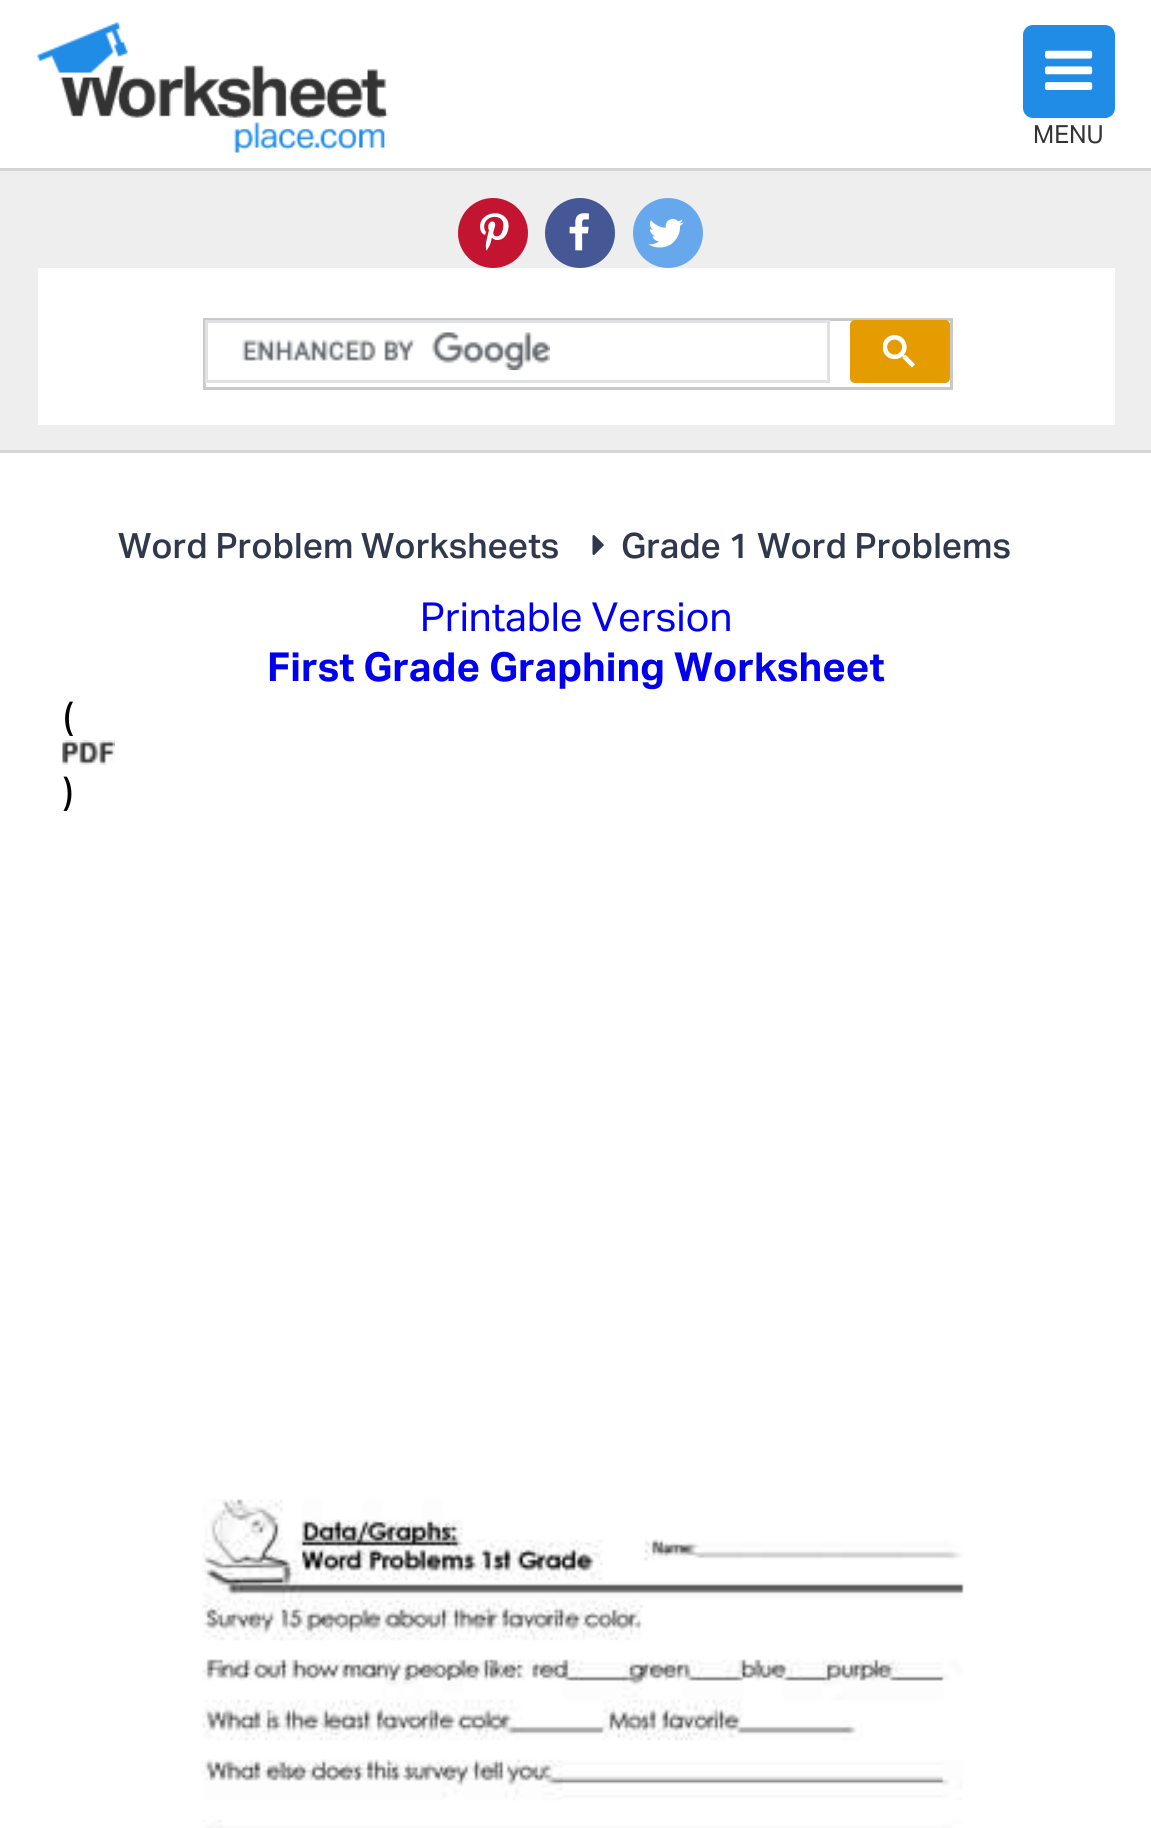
import math
import cairo

surface = cairo.ImageSurface(cairo.FORMAT_RGB24, 1151, 1828)
cr = cairo.Context(surface)
options = cairo.FontOptions()
options.set_hint_metrics(cairo.HINT_METRICS_OFF)
options.set_hint_style(cairo.HINT_STYLE_NONE)
cr.set_font_options(options)
cr.set_miter_limit(4)


def rgb(code):
    cr.set_source_rgb(*(v / 255 for v in bytes.fromhex(code[-6:])))


def rrect(x, y, w, h, r):
    cr.new_sub_path()
    for i, (u, v) in enumerate([(x + w - r, y + h - r), (x + r, y + h - r), (x + r, y + r), (x + w - r, y + r)]):
        cr.arc(u, v, r, i * math.pi / 2, (i + 1) * math.pi / 2)
    cr.close_path()


def image(path, x, y, w, h):
    cr.save()
    cr.set_source_surface(cairo.ImageSurface.create_from_png(path), x, y)
    cr.rectangle(x, y, w, h)
    cr.fill()
    cr.restore()


rgb("#ffffff")
cr.paint()
rgb("#d5d5d5")
cr.rectangle(0, 168, 1151, 3)
cr.fill()
image("img/1.png", 37, 22, 351, 131)
rgb("#218ce6")
rrect(1023, 25, 92, 93, 10)
cr.fill()
image("img/2.png", 1045, 50, 48, 40)
rgb("#eeeeee")
cr.rectangle(0, 171, 1151, 279)
cr.fill()
rgb("#d5d5d5")
cr.rectangle(0, 450, 1151, 3)
cr.fill()
rgb("#c31532")
cr.arc(493, 233, 35, 0, 2 * math.pi)
cr.fill()
image("img/3.png", 480, 213, 29, 38)
rgb("#455795")
cr.arc(580, 233, 35, 0, 2 * math.pi)
cr.fill()
image("img/4.png", 569, 213, 20, 38)
rgb("#66a8eb")
cr.arc(668, 233, 35, 0, 2 * math.pi)
cr.fill()
image("img/5.png", 648, 218, 36, 30)
rgb("#ffffff")
cr.rectangle(38, 268, 1077, 157)
cr.fill()
cr.rectangle(204.5, 319.5, 747, 69)
rgb("#c9c9c9")
cr.set_line_width(3)
cr.stroke()
cr.rectangle(206.5, 321.5, 622, 60)
rgb("#dfe1e5")
cr.stroke()
image("img/6.png", 242, 332, 308, 38)
rgb("#e49c01")
rrect(850, 320, 100, 63, 5)
cr.fill()
image("img/7.png", 883, 335, 32, 33)
image("img/8.png", 592, 535, 12, 20)
image("img/9.png", 62, 740, 53, 25)
image("img/10.png", 202, 1499, 762, 329)
cr.select_font_face("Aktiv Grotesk")
cr.set_font_size(25)
rgb("#333333")
cr.move_to(1033, 143)
cr.show_text("MENU")
cr.select_font_face("Aktiv Grotesk Medium")
cr.set_font_size(35)
rgb("#30384d")
cr.move_to(118, 558)
cr.show_text("Word Problem Worksheets")
cr.move_to(621, 558)
cr.show_text("Grade 1 Word Problems")
cr.select_font_face("Aktiv Grotesk")
cr.set_font_size(40)
rgb("#0000ee")
cr.move_to(420, 631)
cr.show_text("Printable Version")
cr.select_font_face("Aktiv Grotesk", cairo.FONT_SLANT_NORMAL, cairo.FONT_WEIGHT_BOLD)
cr.move_to(267, 681)
cr.show_text("First Grade Graphing Worksheet")
cr.select_font_face("Aktiv Grotesk")
rgb("#000000")
cr.move_to(63, 731)
cr.show_text("(")
cr.move_to(63, 806)
cr.show_text(")")
surface.write_to_png("page.png")
